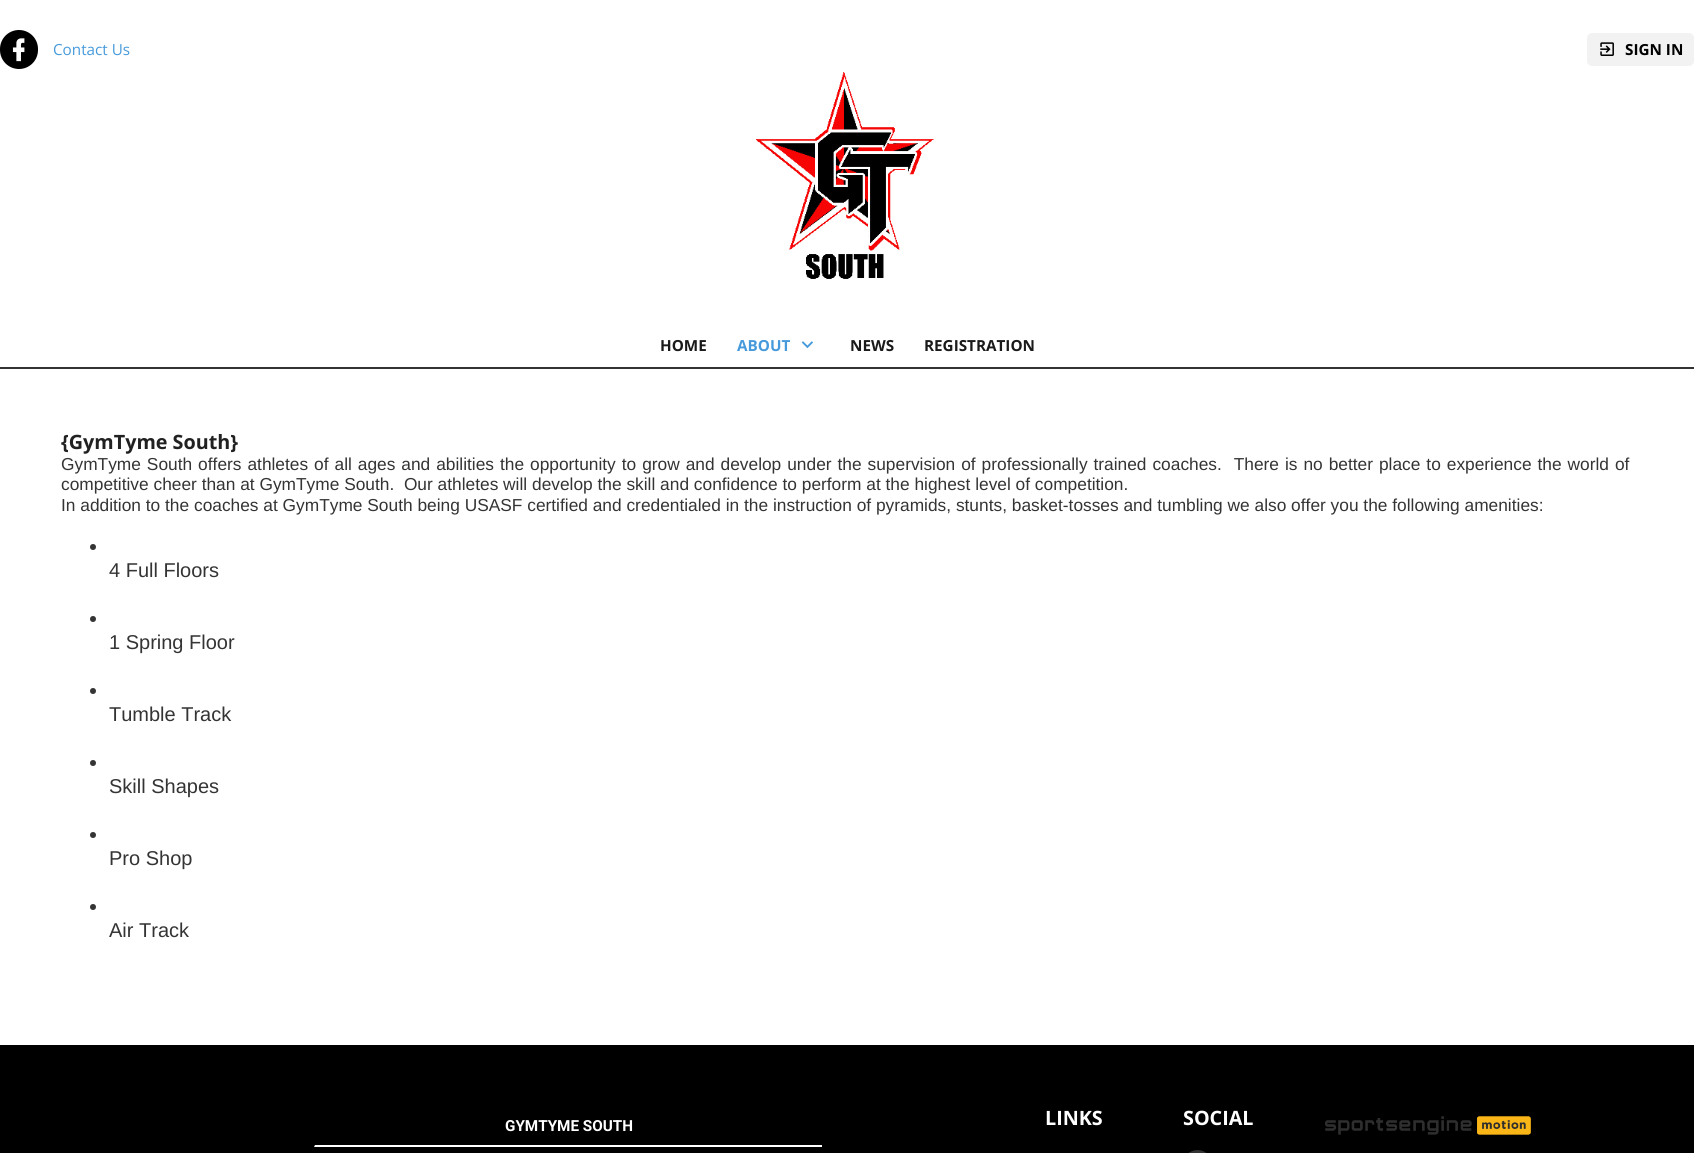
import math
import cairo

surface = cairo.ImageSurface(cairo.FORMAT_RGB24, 1694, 1153)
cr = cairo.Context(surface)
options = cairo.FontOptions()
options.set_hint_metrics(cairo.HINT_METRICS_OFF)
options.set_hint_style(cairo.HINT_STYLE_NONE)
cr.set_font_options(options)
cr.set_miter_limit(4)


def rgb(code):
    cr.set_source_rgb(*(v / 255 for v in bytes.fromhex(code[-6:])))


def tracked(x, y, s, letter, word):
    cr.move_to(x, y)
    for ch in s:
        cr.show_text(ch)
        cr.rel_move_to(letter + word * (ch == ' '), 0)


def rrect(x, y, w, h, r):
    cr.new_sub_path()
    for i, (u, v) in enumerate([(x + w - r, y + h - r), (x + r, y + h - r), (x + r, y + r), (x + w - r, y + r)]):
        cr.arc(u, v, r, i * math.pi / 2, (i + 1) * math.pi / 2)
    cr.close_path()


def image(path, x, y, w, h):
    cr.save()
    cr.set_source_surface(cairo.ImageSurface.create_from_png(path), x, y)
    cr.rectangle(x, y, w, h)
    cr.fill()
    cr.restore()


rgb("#ffffff")
cr.paint()
rgb("#000000")
rrect(0, 30, 38, 39, 19)
cr.fill()
image("img/1.png", 12, 38, 13, 24)
rgb("#f2f2f2")
rrect(1587, 33, 107, 33, 5)
cr.fill()
image("img/2.png", 1600, 42, 14, 14)
image("img/3.png", 756, 72, 178, 207)
rgb("#333333")
cr.rectangle(0, 367, 1694, 2)
cr.fill()
image("img/4.png", 801, 341, 12, 8)
rgb("#343434")
cr.arc(93, 547, 3, 0, 2 * math.pi)
cr.fill()
cr.arc(93, 619, 3, 0, 2 * math.pi)
cr.fill()
cr.arc(93, 691, 3, 0, 2 * math.pi)
cr.fill()
cr.arc(93, 763, 3, 0, 2 * math.pi)
cr.fill()
cr.arc(93, 835, 3, 0, 2 * math.pi)
cr.fill()
cr.arc(93, 907, 3, 0, 2 * math.pi)
cr.fill()
rgb("#000000")
cr.rectangle(0, 1045, 1694, 108)
cr.fill()
rgb("#ffffff")
cr.new_path()
cr.move_to(822, 1147)
cr.line_to(314, 1147)
cr.line_to(315, 1145)
cr.line_to(822, 1145)
cr.close_path()
cr.fill()
rgb("#333333")
rrect(1183, 1150, 29, 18, 14.5)
cr.fill()
image("img/5.png", 1325, 1116, 206, 19)
cr.select_font_face("Open Sans")
cr.set_font_size(15.25)
rgb("#469adb")
cr.move_to(53, 55)
cr.show_text("Contact Us")
cr.select_font_face("Open Sans", cairo.FONT_SLANT_NORMAL, cairo.FONT_WEIGHT_BOLD)
rgb("#000000")
cr.move_to(1625, 55)
cr.show_text("SIGN IN")
rgb("#1a1a1a")
cr.move_to(660, 351)
cr.show_text("HOME")
rgb("#469adb")
cr.move_to(737, 351)
cr.show_text("ABOUT")
rgb("#1a1a1a")
cr.move_to(850, 351)
cr.show_text("NEWS")
cr.move_to(924, 351)
cr.show_text("REGISTRATION")
cr.set_font_size(19.75)
rgb("#212121")
cr.move_to(61, 449)
cr.show_text("{GymTyme South}")
cr.select_font_face("Liberation Sans")
cr.set_font_size(17.33)
rgb("#343434")
tracked(61, 470, "GymTyme South offers athletes of all ages and abilities the opportunity to grow and develop under the supervision of professionally trained coaches.  There is no better place to experience the world of", 0, 1.15)
cr.move_to(61, 490)
cr.show_text("competitive cheer than at GymTyme South.  Our athletes will develop the skill and confidence to perform at the highest level of competition.")
cr.move_to(61, 511)
cr.show_text("In addition to the coaches at GymTyme South being USASF certified and credentialed in the instruction of pyramids, stunts, basket-tosses and tumbling we also offer you the following amenities:")
cr.set_font_size(20)
for x, y, s in [
    (109, 577, "4 Full Floors"),
    (109, 649, "1 Spring Floor"),
    (109, 721, "Tumble Track"),
    (109, 793, "Skill Shapes"),
    (109, 865, "Pro Shop"),
    (109, 937, "Air Track"),
]:
    cr.move_to(x, y)
    cr.show_text(s)
cr.select_font_face("Roboto", cairo.FONT_SLANT_NORMAL, cairo.FONT_WEIGHT_BOLD)
cr.set_font_size(15.25)
rgb("#ffffff")
cr.move_to(505, 1131)
cr.show_text("GYMTYME SOUTH")
cr.select_font_face("Open Sans", cairo.FONT_SLANT_NORMAL, cairo.FONT_WEIGHT_BOLD)
cr.set_font_size(19.75)
cr.move_to(1045, 1125)
cr.show_text("LINKS")
cr.move_to(1183, 1125)
cr.show_text("SOCIAL")
surface.write_to_png("page.png")
